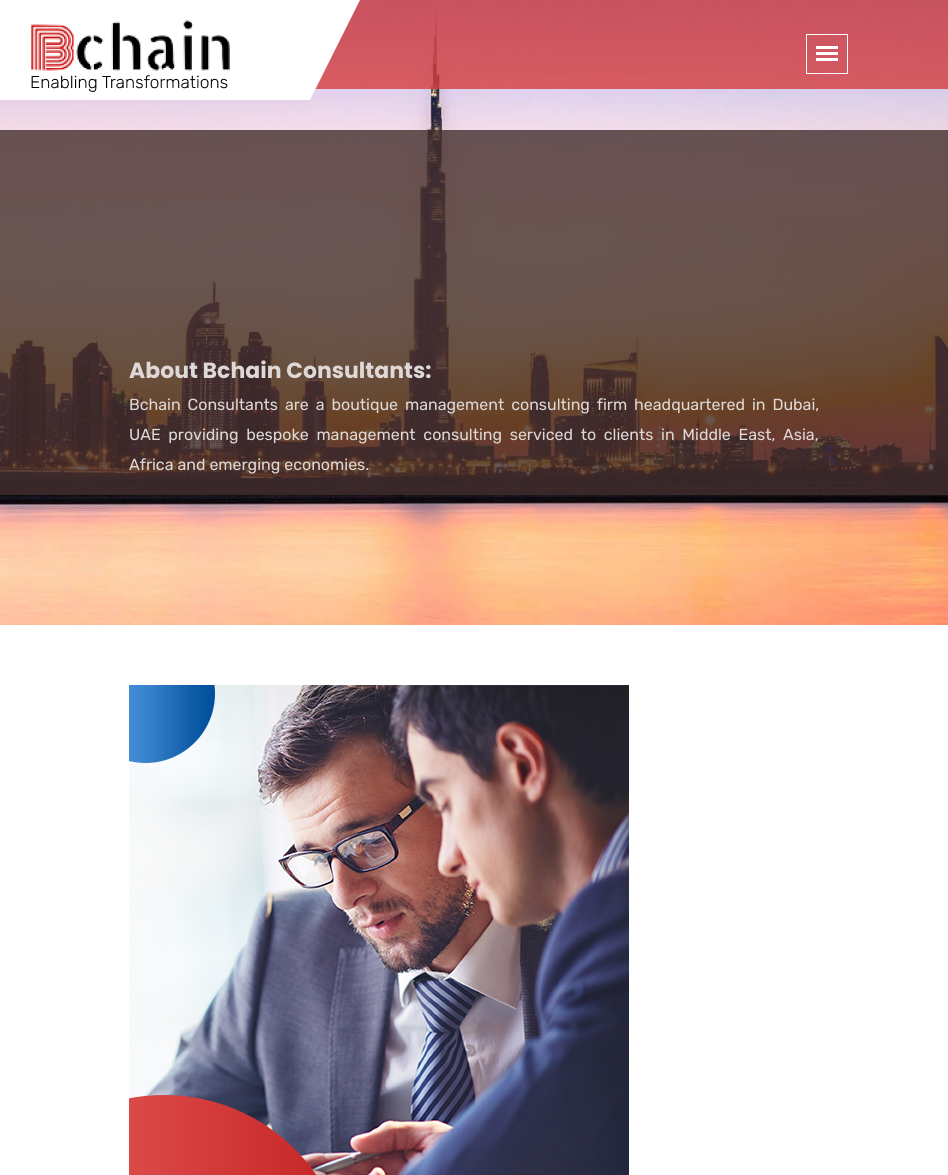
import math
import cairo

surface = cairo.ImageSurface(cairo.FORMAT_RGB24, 948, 1175)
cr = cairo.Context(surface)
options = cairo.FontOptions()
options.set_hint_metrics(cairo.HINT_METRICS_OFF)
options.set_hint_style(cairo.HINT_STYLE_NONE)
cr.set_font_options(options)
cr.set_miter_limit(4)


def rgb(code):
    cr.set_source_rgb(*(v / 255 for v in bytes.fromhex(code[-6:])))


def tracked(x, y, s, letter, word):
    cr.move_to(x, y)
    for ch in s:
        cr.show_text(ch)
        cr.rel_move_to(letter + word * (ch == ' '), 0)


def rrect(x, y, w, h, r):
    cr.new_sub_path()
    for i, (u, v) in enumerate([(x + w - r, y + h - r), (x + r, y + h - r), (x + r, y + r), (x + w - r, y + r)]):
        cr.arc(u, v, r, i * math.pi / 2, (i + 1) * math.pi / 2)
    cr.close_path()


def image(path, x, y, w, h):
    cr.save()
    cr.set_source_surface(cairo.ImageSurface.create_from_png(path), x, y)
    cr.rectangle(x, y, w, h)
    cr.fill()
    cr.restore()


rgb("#ffffff")
cr.paint()
image("img/2.png", 0, 0, 948, 625)
cr.set_source_rgba(0.839, 0.247, 0.247, 0.8)
cr.rectangle(315, 0, 633, 89)
cr.fill()
rgb("#ffffff")
cr.new_path()
cr.move_to(0, 0)
cr.line_to(0, 100)
cr.line_to(310, 100)
cr.line_to(360, 0)
cr.close_path()
cr.fill()
image("img/1.png", 31, 20, 199, 72)
cr.rectangle(806.5, 34.5, 41, 39)
cr.set_line_width(1)
cr.stroke()
cr.rectangle(816, 46, 22, 3)
cr.rectangle(816, 52, 22, 3)
cr.rectangle(816, 58, 22, 3)
cr.fill()
cr.set_source_rgba(0.263, 0.18, 0.18, 0.8)
cr.rectangle(0, 130, 948, 365)
cr.fill()
image("img/3.png", 129, 685, 500, 490)
cr.save()
cr.rectangle(129, 685, 690, 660)
cr.clip()
gradient = cairo.LinearGradient(-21, 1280, 349, 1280)
gradient.add_color_stop_rgba(0, 0.925, 0.388, 0.388, 1)
gradient.add_color_stop_rgba(1, 0.769, 0.137, 0.137, 1)
cr.set_source(gradient)
rrect(-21, 1095, 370, 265, 185)
cr.fill()
cr.restore()
cr.select_font_face("Poppins", cairo.FONT_SLANT_NORMAL, cairo.FONT_WEIGHT_BOLD)
cr.set_font_size(22)
rgb("#ded9d7")
cr.move_to(129, 378)
cr.show_text("About Bchain Consultants:")
cr.select_font_face("Rubik")
cr.set_font_size(16)
tracked(129, 410, "Bchain Consultants are a boutique management consulting firm headquartered in Dubai,", 0, 3)
tracked(129, 440, "UAE providing bespoke management consulting serviced to clients in Middle East, Asia,", 0, 3.75)
cr.move_to(129, 470)
cr.show_text("Africa and emerging economies.")
surface.write_to_png("page.png")
